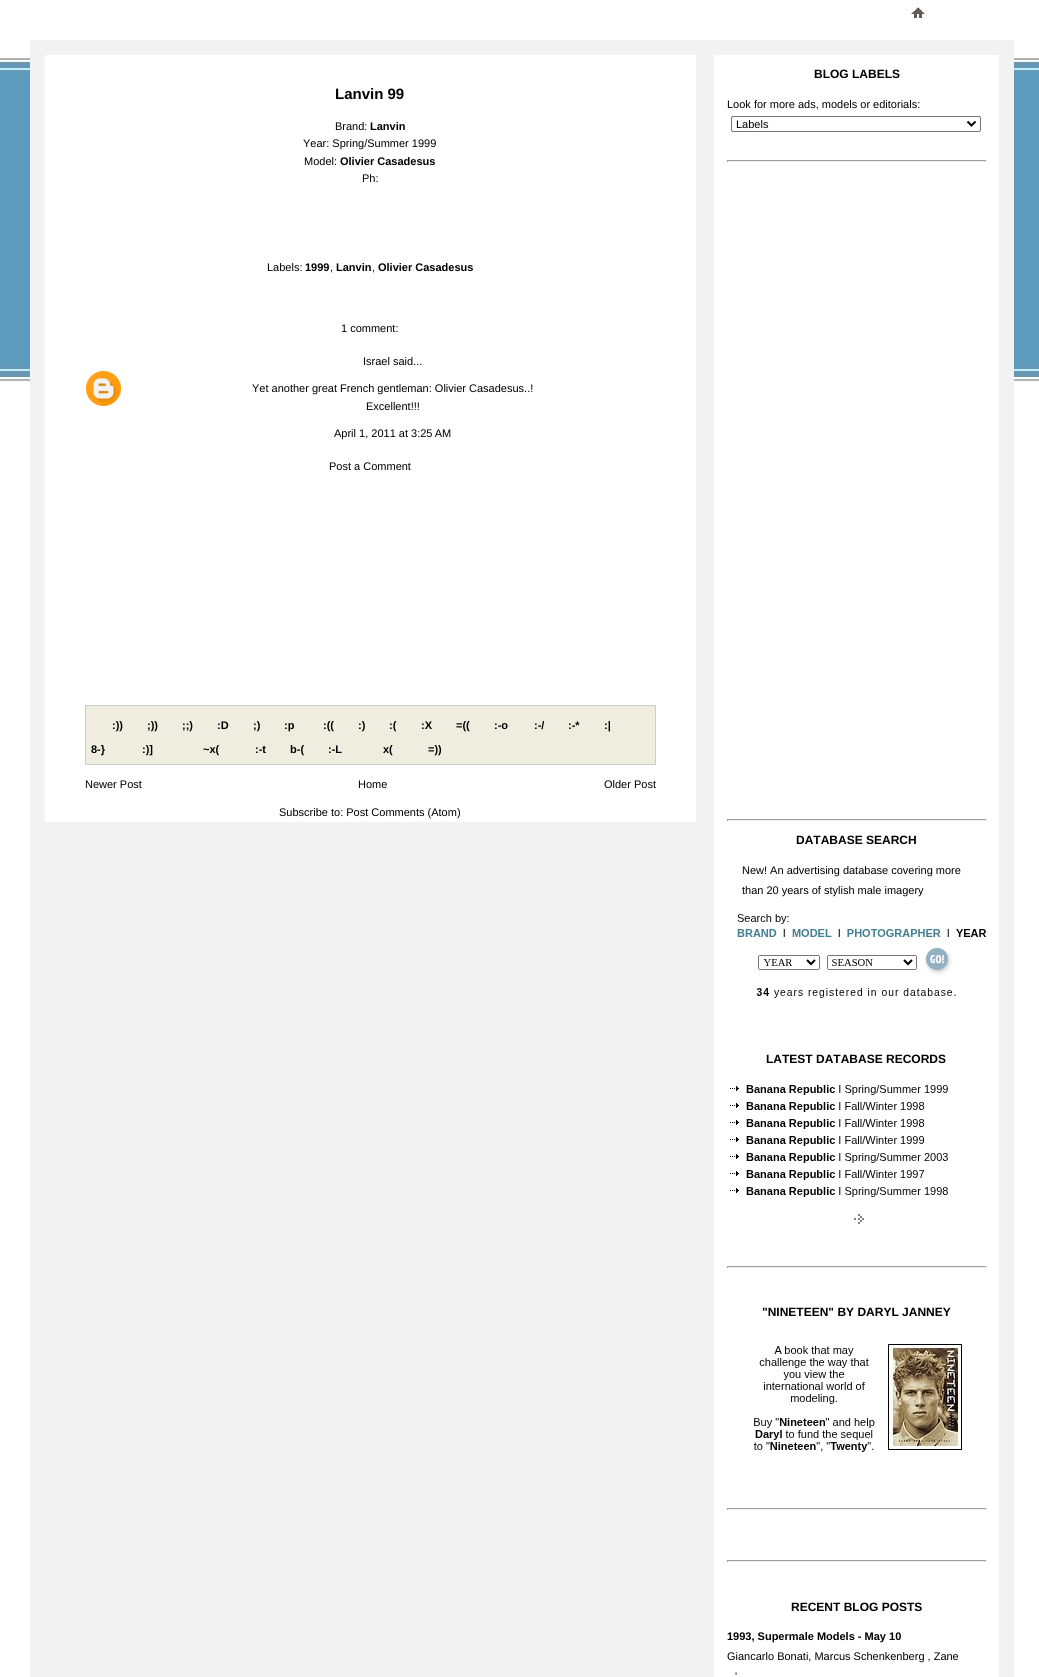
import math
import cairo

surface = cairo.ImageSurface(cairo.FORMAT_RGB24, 1039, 1677)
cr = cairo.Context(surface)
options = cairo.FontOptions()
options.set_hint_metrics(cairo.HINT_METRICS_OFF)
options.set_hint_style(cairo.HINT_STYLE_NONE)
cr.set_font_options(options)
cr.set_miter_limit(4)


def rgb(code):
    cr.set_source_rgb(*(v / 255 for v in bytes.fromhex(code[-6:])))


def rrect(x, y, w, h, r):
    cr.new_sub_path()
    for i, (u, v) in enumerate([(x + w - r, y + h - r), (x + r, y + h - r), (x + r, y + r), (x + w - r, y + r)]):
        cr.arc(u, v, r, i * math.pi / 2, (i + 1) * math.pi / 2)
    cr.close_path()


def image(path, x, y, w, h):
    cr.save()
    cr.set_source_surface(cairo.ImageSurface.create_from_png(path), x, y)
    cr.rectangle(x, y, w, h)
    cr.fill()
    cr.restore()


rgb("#ffffff")
cr.paint()
image("img/1.png", 0, 58, 1039, 323)
image("img/2.png", 911, 7, 14, 11)
rgb("#f2f2f2")
cr.rectangle(30, 40, 984, 1637)
cr.fill()
rgb("#ffffff")
cr.rectangle(45, 55, 651, 767)
cr.fill()
image("img/3.png", 86, 371, 35, 35)
rgb("#eeeddf")
cr.rectangle(85.5, 705.5, 570, 59)
cr.fill_preserve()
rgb("#cccccc")
cr.set_line_width(1)
cr.stroke()
rgb("#ffffff")
cr.rectangle(714, 55, 285, 1622)
cr.fill()
rrect(731.5, 116.5, 249, 15, 1.5)
rgb("#767676")
cr.stroke()
cr.new_path()
cr.move_to(967.5, 121.5)
cr.line_to(971.5, 125.5)
cr.line_to(975.5, 121.5)
rgb("#000000")
cr.set_line_width(2)
cr.stroke()
for x, y, w, h, color in [
    (727, 160, 260, 1, "#9f9f9f"),
    (986, 160, 1, 2, "#eeeeee"),
    (727, 161, 260, 1, "#eeeeee"),
    (727, 160, 1, 2, "#9f9f9f"),
    (727, 819, 260, 1, "#9f9f9f"),
    (986, 819, 1, 2, "#eeeeee"),
    (727, 820, 260, 1, "#eeeeee"),
    (727, 819, 1, 2, "#9f9f9f"),
]:
    rgb(color)
    cr.rectangle(x, y, w, h)
    cr.fill()
image("img/4.png", 737, 914, 250, 84)
image("img/5.png", 730, 1085, 218, 139)
for x, y, w, h, color in [
    (727, 1266, 260, 1, "#9f9f9f"),
    (986, 1266, 1, 2, "#eeeeee"),
    (727, 1267, 260, 1, "#eeeeee"),
    (727, 1266, 1, 2, "#9f9f9f"),
]:
    rgb(color)
    cr.rectangle(x, y, w, h)
    cr.fill()
image("img/6.png", 753, 1344, 209, 108)
for x, y, w, h, color in [
    (727, 1508, 260, 1, "#9f9f9f"),
    (986, 1508, 1, 2, "#eeeeee"),
    (727, 1509, 260, 1, "#eeeeee"),
    (727, 1508, 1, 2, "#9f9f9f"),
    (727, 1560, 260, 1, "#9f9f9f"),
    (986, 1560, 1, 2, "#eeeeee"),
    (727, 1561, 260, 1, "#eeeeee"),
    (727, 1560, 1, 2, "#9f9f9f"),
]:
    rgb(color)
    cr.rectangle(x, y, w, h)
    cr.fill()
cr.select_font_face("Liberation Sans", cairo.FONT_SLANT_NORMAL, cairo.FONT_WEIGHT_BOLD)
cr.set_font_size(15)
rgb("#000000")
cr.move_to(335, 99)
cr.show_text("Lanvin 99")
cr.select_font_face("Liberation Sans")
cr.set_font_size(11)
cr.move_to(335, 130)
cr.show_text("Brand:")
cr.select_font_face("Liberation Sans", cairo.FONT_SLANT_NORMAL, cairo.FONT_WEIGHT_BOLD)
cr.move_to(370, 130)
cr.show_text("Lanvin")
cr.select_font_face("Liberation Sans")
cr.move_to(303, 147)
cr.show_text("Year: Spring/Summer 1999")
cr.move_to(304, 165)
cr.show_text("Model:")
cr.select_font_face("Liberation Sans", cairo.FONT_SLANT_NORMAL, cairo.FONT_WEIGHT_BOLD)
cr.move_to(340, 165)
cr.show_text("Olivier Casadesus")
cr.select_font_face("Liberation Sans")
cr.move_to(362, 182)
cr.show_text("Ph:")
cr.move_to(267, 271)
cr.show_text("Labels:")
cr.select_font_face("Liberation Sans", cairo.FONT_SLANT_NORMAL, cairo.FONT_WEIGHT_BOLD)
cr.move_to(305, 271)
cr.show_text("1999")
cr.select_font_face("Liberation Sans")
cr.move_to(330, 271)
cr.show_text(",")
cr.select_font_face("Liberation Sans", cairo.FONT_SLANT_NORMAL, cairo.FONT_WEIGHT_BOLD)
cr.move_to(336, 271)
cr.show_text("Lanvin")
cr.select_font_face("Liberation Sans")
cr.move_to(372, 271)
cr.show_text(",")
cr.select_font_face("Liberation Sans", cairo.FONT_SLANT_NORMAL, cairo.FONT_WEIGHT_BOLD)
cr.move_to(378, 271)
cr.show_text("Olivier Casadesus")
cr.select_font_face("Liberation Sans")
for x, y, s in [
    (341, 332, "1 comment:"),
    (363, 365, "Israel said..."),
    (252, 392, "Yet another great French gentleman: Olivier Casadesus..!"),
    (366, 410, "Excellent!!!"),
    (334, 437, "April 1, 2011 at 3:25 AM"),
    (329, 470, "Post a Comment"),
]:
    cr.move_to(x, y)
    cr.show_text(s)
cr.select_font_face("Liberation Sans", cairo.FONT_SLANT_NORMAL, cairo.FONT_WEIGHT_BOLD)
for x, y, s in [
    (112, 729, ":))"),
    (147, 729, ";))"),
    (182, 729, ";;)"),
    (217, 729, ":D"),
    (253, 729, ";)"),
    (284, 729, ":p"),
    (323, 729, ":(("),
    (358, 729, ":)"),
    (389, 729, ":("),
    (421, 729, ":X"),
    (456, 729, "=(("),
    (494, 729, ":-o"),
    (534, 729, ":-/"),
    (568, 729, ":-*"),
    (604, 729, ":|"),
    (91, 753, "8-}"),
    (142, 753, ":)]"),
    (203, 753, "~x("),
    (255, 753, ":-t"),
    (290, 753, "b-("),
    (328, 753, ":-L"),
    (383, 753, "x("),
    (428, 753, "=))"),
]:
    cr.move_to(x, y)
    cr.show_text(s)
cr.select_font_face("Liberation Sans")
for x, y, s in [
    (85, 788, "Newer Post"),
    (358, 788, "Home"),
    (604, 788, "Older Post"),
    (279, 816, "Subscribe to: Post Comments (Atom)"),
]:
    cr.move_to(x, y)
    cr.show_text(s)
cr.select_font_face("Liberation Sans", cairo.FONT_SLANT_NORMAL, cairo.FONT_WEIGHT_BOLD)
cr.set_font_size(12)
cr.move_to(814, 78)
cr.show_text("BLOG LABELS")
cr.select_font_face("Liberation Sans")
cr.set_font_size(11)
cr.move_to(727, 108)
cr.show_text("Look for more ads, models or editorials:")
cr.move_to(736, 128)
cr.show_text("Labels")
cr.select_font_face("Liberation Sans", cairo.FONT_SLANT_NORMAL, cairo.FONT_WEIGHT_BOLD)
cr.set_font_size(12)
cr.move_to(796, 844)
cr.show_text("DATABASE SEARCH")
cr.select_font_face("Liberation Sans")
cr.set_font_size(11)
cr.move_to(742, 874)
cr.show_text("New! An advertising database covering more")
cr.move_to(742, 894)
cr.show_text("than 20 years of stylish male imagery")
cr.select_font_face("Liberation Sans", cairo.FONT_SLANT_NORMAL, cairo.FONT_WEIGHT_BOLD)
cr.set_font_size(12)
for x, y, s in [
    (766, 1063, "LATEST DATABASE RECORDS"),
    (762, 1316, "\"NINETEEN\" BY DARYL JANNEY"),
    (791, 1611, "RECENT BLOG POSTS"),
]:
    cr.move_to(x, y)
    cr.show_text(s)
cr.set_font_size(11)
cr.move_to(727, 1640)
cr.show_text("1993, Supermale Models - May 10")
cr.select_font_face("Liberation Sans")
cr.move_to(727, 1660)
cr.show_text("Giancarlo Bonati, Marcus Schenkenberg , Zane")
cr.move_to(735, 1680)
cr.show_text("'")
surface.write_to_png("page.png")
